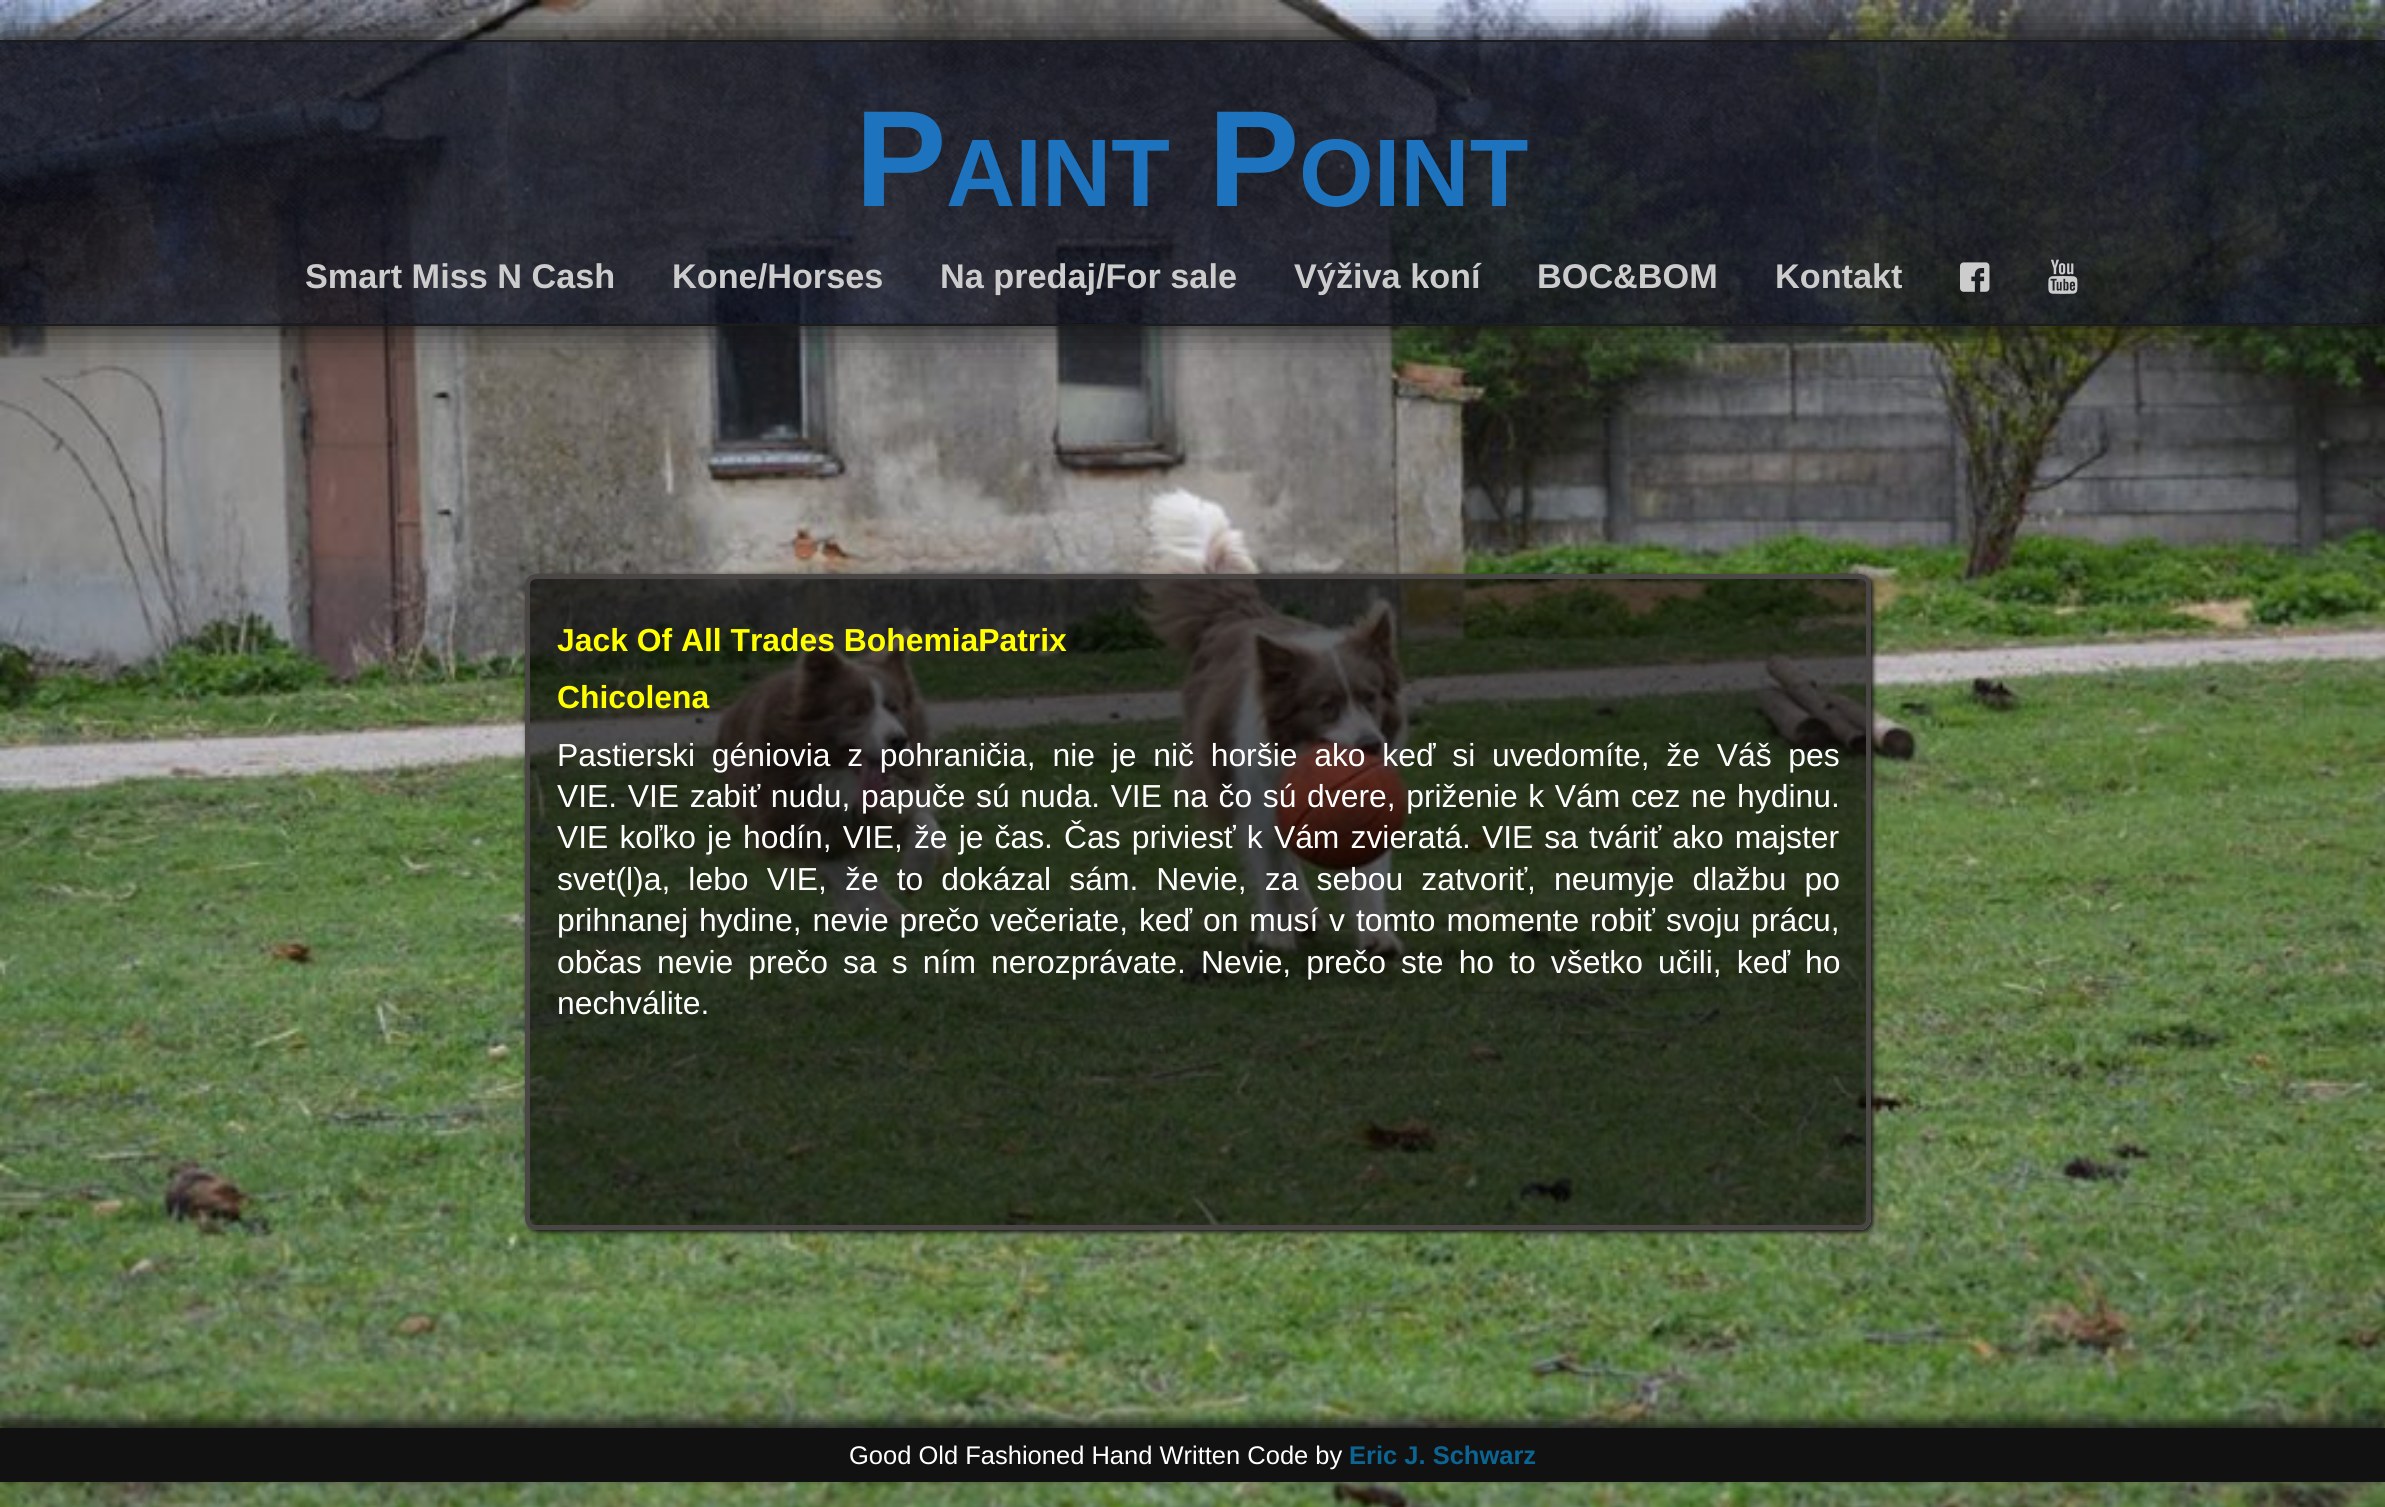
import math
import cairo

surface = cairo.ImageSurface(cairo.FORMAT_RGB24, 2385, 1507)
cr = cairo.Context(surface)
options = cairo.FontOptions()
options.set_hint_metrics(cairo.HINT_METRICS_OFF)
options.set_hint_style(cairo.HINT_STYLE_NONE)
cr.set_font_options(options)
cr.set_miter_limit(4)


def rgb(code):
    cr.set_source_rgb(*(v / 255 for v in bytes.fromhex(code[-6:])))


def tracked(x, y, s, letter, word):
    cr.move_to(x, y)
    for ch in s:
        cr.show_text(ch)
        cr.rel_move_to(letter + word * (ch == ' '), 0)


def rrect(x, y, w, h, r):
    cr.new_sub_path()
    for i, (u, v) in enumerate([(x + w - r, y + h - r), (x + r, y + h - r), (x + r, y + r), (x + w - r, y + r)]):
        cr.arc(u, v, r, i * math.pi / 2, (i + 1) * math.pi / 2)
    cr.close_path()


def soft_shadow(x, y, w, h, r, blur, alpha):
    cr.push_group_with_content(cairo.CONTENT_ALPHA)
    cr.set_operator(cairo.OPERATOR_SOURCE)
    for i in range(15, -16, -2):
        e = blur * i / 6
        if min(w, h) + 2 * e > 0:
            cr.set_source_rgba(0, 0, 0, alpha * math.erfc((i - 1) / 8.5) / 2)
            rrect(x - e, y - e, w + 2 * e, h + 2 * e, max(0, min(r + e + blur * .6, min(w, h) / 2 + e)))
            cr.fill()
    cr.mask(cr.pop_group())


def image(path, x, y, w, h):
    cr.save()
    cr.set_source_surface(cairo.ImageSurface.create_from_png(path), x, y)
    cr.rectangle(x, y, w, h)
    cr.fill()
    cr.restore()


rgb("#ffffff")
cr.paint()
image("img/1.png", 0, 0, 2385, 1507)
cr.save()
cr.set_fill_rule(cairo.FILL_RULE_EVEN_ODD)
cr.new_path()
cr.move_to(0, 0)
cr.line_to(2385, 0)
cr.line_to(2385, 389)
cr.line_to(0, 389)
cr.close_path()
cr.move_to(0, 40)
cr.line_to(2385, 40)
cr.line_to(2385, 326)
cr.line_to(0, 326)
cr.close_path()
cr.clip()
rgb("#111111")
soft_shadow(0, 40, 2385, 286, 0, 20.5, 1)
cr.restore()
image("img/2.png", 0, 42, 2385, 282)
rgb("#1c1c1c")
cr.rectangle(0, 40, 2385, 2)
cr.fill()
cr.rectangle(0, 324, 2385, 2)
cr.fill()
image("img/3.png", 1960, 262, 30, 30)
image("img/4.png", 2048, 259, 30, 35)
cr.save()
cr.set_fill_rule(cairo.FILL_RULE_EVEN_ODD)
cr.new_path()
cr.move_to(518, 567)
cr.line_to(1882, 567)
cr.line_to(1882, 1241)
cr.line_to(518, 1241)
cr.close_path()
cr.move_to(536, 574)
cr.line_to(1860, 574)
cr.curve_to(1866, 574, 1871, 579, 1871, 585)
cr.line_to(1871, 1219)
cr.curve_to(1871, 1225, 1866, 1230, 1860, 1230)
cr.line_to(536, 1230)
cr.curve_to(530, 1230, 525, 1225, 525, 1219)
cr.line_to(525, 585)
cr.curve_to(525, 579, 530, 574, 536, 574)
cr.close_path()
cr.clip()
rgb("#111111")
soft_shadow(527, 576, 1346, 656, 11, 2.5, 1)
cr.restore()
cr.set_source_rgba(0, 0, 0, 0.6)
rrect(527.5, 576.5, 1341, 651, 8.5)
cr.fill_preserve()
rgb("#4a4646")
cr.set_line_width(5)
cr.stroke()
rgb("#131313")
soft_shadow(0, 1421, 2385, 54, 0, 6.5, 0.8)
rgb("#111111")
cr.rectangle(0, 1428, 2385, 54)
cr.fill()
cr.select_font_face("Liberation Sans", cairo.FONT_SLANT_NORMAL, cairo.FONT_WEIGHT_BOLD)
cr.set_font_size(137)
rgb("#1e73be")
cr.move_to(855, 206)
cr.show_text("P")
cr.set_font_size(96)
cr.move_to(946, 206)
cr.show_text("AINT")
cr.set_font_size(137)
cr.move_to(1208, 206)
cr.show_text("P")
cr.set_font_size(96)
cr.move_to(1299, 206)
cr.show_text("OINT")
cr.set_font_size(34.25)
rgb("#cccccc")
for x, y, s in [
    (305, 288, "Smart Miss N Cash"),
    (672, 288, "Kone/Horses"),
    (940, 288, "Na predaj/For sale"),
    (1294, 288, "Výživa koní"),
    (1537, 288, "BOC&BOM"),
    (1775, 288, "Kontakt"),
]:
    cr.move_to(x, y)
    cr.show_text(s)
cr.set_font_size(31.85)
rgb("#ffff00")
cr.move_to(557, 651)
cr.show_text("Jack Of All Trades BohemiaPatrix")
cr.move_to(557, 708)
cr.show_text("Chicolena")
cr.select_font_face("Liberation Sans")
rgb("#ffffff")
tracked(557, 766, "Pastierski géniovia z pohraničia, nie je nič horšie ako keď si uvedomíte, že Váš pes", 0, 7.9)
tracked(557, 807, "VIE. VIE zabiť nudu, papuče sú nuda. VIE na čo sú dvere, priženie k Vám cez ne hydinu.", 0, 1.75)
tracked(557, 848, "VIE koľko je hodín, VIE, že je čas. Čas priviesť k Vám zvieratá. VIE sa tváriť ako majster", 0, 2.25)
tracked(557, 890, "svet(l)a, lebo VIE, že to dokázal sám. Nevie, za sebou zatvoriť, neumyje dlažbu po", 0, 9.25)
tracked(557, 931, "prihnanej hydine, nevie prečo večeriate, keď on musí v tomto momente robiť svoju prácu,", 0, 2)
tracked(557, 973, "občas nevie prečo sa s ním nerozprávate. Nevie, prečo ste ho to všetko učili, keď ho", 0, 6.25)
cr.move_to(557, 1014)
cr.show_text("nechválite.")
cr.set_font_size(25.5)
cr.move_to(849, 1464)
cr.show_text("Good Old Fashioned Hand Written Code by")
cr.select_font_face("Liberation Sans", cairo.FONT_SLANT_NORMAL, cairo.FONT_WEIGHT_BOLD)
rgb("#0b6492")
cr.move_to(1349, 1464)
cr.show_text("Eric J. Schwarz")
surface.write_to_png("page.png")
